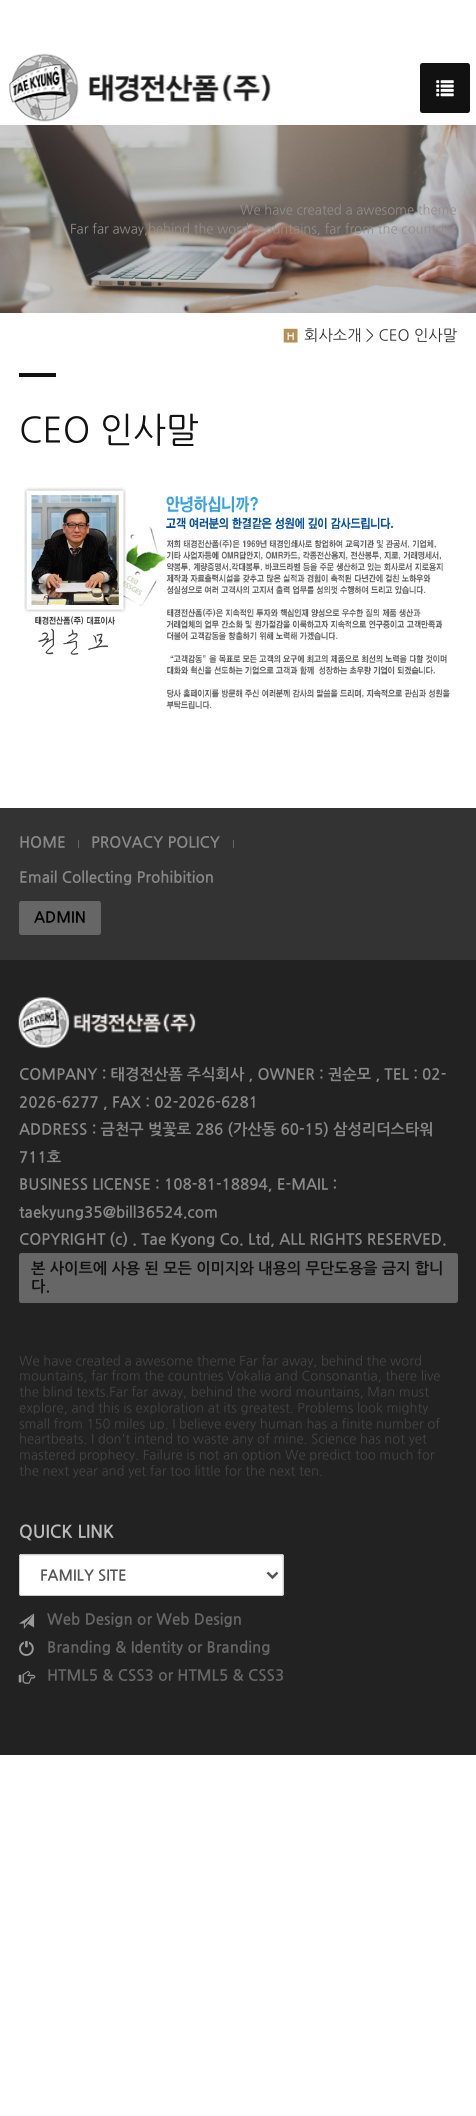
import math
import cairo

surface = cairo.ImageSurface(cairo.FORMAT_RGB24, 476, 2116)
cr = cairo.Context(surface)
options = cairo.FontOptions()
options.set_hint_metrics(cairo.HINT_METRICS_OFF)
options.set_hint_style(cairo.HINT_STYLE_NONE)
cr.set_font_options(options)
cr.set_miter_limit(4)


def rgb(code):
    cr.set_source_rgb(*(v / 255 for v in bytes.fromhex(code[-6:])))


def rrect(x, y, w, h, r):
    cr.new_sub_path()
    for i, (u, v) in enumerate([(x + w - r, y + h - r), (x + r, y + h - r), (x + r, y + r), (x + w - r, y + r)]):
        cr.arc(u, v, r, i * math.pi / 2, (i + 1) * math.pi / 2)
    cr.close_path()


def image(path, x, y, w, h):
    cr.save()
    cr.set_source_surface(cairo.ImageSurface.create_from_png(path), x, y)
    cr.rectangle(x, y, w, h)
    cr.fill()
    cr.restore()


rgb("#ffffff")
cr.paint()
image("img/1.png", 9, 53, 262, 69)
rgb("#111111")
rrect(420, 63, 50, 50, 2.5)
cr.fill()
image("img/2.png", 436, 80, 18, 17)
image("img/3.png", 0, 125, 476, 188)
image("img/4.png", 283, 328, 15, 15)
cr.rectangle(19, 373, 37, 4)
cr.fill()
image("img/5.png", 24, 487, 426, 223)
for x, y, w, h, color in [
    (0, 960, 476, 795, "#222222"),
    (0, 808, 476, 152, "#333333"),
    (78, 840, 1, 8, "#666666"),
    (233, 840, 1, 8, "#666666"),
]:
    rgb(color)
    cr.rectangle(x, y, w, h)
    cr.fill()
rrect(19, 901, 82, 34, 2.5)
cr.fill()
image("img/6.png", 18, 997, 178, 51)
rrect(19, 1253, 439, 50, 2.5)
cr.fill()
rgb("#ffffff")
rrect(19, 1554, 265, 42, 2.5)
cr.fill()
rgb("#ececec")
cr.new_path()
cr.move_to(21, 1556)
cr.line_to(281, 1556)
cr.curve_to(282, 1556, 282, 1557, 282, 1558)
cr.line_to(282, 1595)
cr.line_to(283, 1595)
cr.line_to(283, 1556)
cr.line_to(282, 1555)
cr.line_to(21, 1555)
cr.curve_to(20, 1555, 20, 1557, 20, 1558)
cr.close_path()
cr.fill()
rrect(19.5, 1554.5, 264, 41, 2)
rgb("#cccccc")
cr.set_line_width(1)
cr.stroke()
cr.new_path()
cr.move_to(267.5, 1572.5)
cr.line_to(272.5, 1577.5)
cr.line_to(277.5, 1572.5)
rgb("#555555")
cr.set_line_width(2.5)
cr.stroke()
image("img/7.png", 19, 1613, 16, 16)
image("img/8.png", 19, 1640, 15, 16)
image("img/9.png", 18, 1670, 18, 14)
cr.select_font_face("NanumGothic")
cr.set_font_size(13.1)
rgb("#938e8b")
cr.move_to(240, 214)
cr.show_text("We have created a awesome theme")
cr.move_to(70, 233)
cr.show_text("Far far away,behind the word mountains, far from the countries")
cr.set_font_size(15.3)
rgb("#333333")
cr.move_to(304, 340)
cr.show_text("회사소개 > CEO 인사말")
cr.set_font_size(35)
rgb("#111111")
cr.move_to(19, 441)
cr.show_text("CEO 인사말")
cr.select_font_face("NanumGothic", cairo.FONT_SLANT_NORMAL, cairo.FONT_WEIGHT_BOLD)
cr.set_font_size(15.3)
rgb("#888888")
for x, y, s in [
    (19, 847, "HOME"),
    (91, 847, "PROVACY POLICY"),
    (19, 882, "Email Collecting Prohibition"),
]:
    cr.move_to(x, y)
    cr.show_text(s)
rgb("#000000")
cr.move_to(34, 922)
cr.show_text("ADMIN")
rgb("#888888")
for x, y, s in [
    (19, 1079, "COMPANY : 태경전산폼 주식회사 , OWNER : 권순모 , TEL : 02-"),
    (19, 1107, "2026-6277 , FAX : 02-2026-6281"),
    (19, 1134, "ADDRESS : 금천구 벚꽃로 286 (가산동 60-15) 삼성리더스타워"),
    (19, 1162, "711호"),
    (19, 1189, "BUSINESS LICENSE : 108-81-18894, E-MAIL :"),
    (19, 1217, "taekyung35@bill36524.com"),
    (19, 1244, "COPYRIGHT (c) . Tae Kyong Co. Ltd, ALL RIGHTS RESERVED."),
]:
    cr.move_to(x, y)
    cr.show_text(s)
rgb("#111111")
cr.move_to(31, 1273)
cr.show_text("본 사이트에 사용 된 모든 이미지와 내용의 무단도용을 금지 합니")
cr.move_to(31, 1291)
cr.show_text("다.")
cr.select_font_face("NanumGothic")
cr.set_font_size(13.1)
rgb("#444444")
for x, y, s in [
    (19, 1365, "We have created a awesome theme Far far away, behind the word"),
    (19, 1380, "mountains, far from the countries Vokalia and Consonantia, there live"),
    (19, 1396, "the blind texts.Far far away, behind the word mountains, Man must"),
    (19, 1412, "explore, and this is exploration at its greatest. Problems look mighty"),
    (19, 1428, "small from 150 miles up. I believe every human has a finite number of"),
    (19, 1443, "heartbeats. I don't intend to waste any of mine. Science has not yet"),
    (19, 1459, "mastered prophecy. Failure is not an option We predict too much for"),
    (19, 1475, "the next year and yet far too little for the next ten."),
]:
    cr.move_to(x, y)
    cr.show_text(s)
cr.select_font_face("NanumGothic", cairo.FONT_SLANT_NORMAL, cairo.FONT_WEIGHT_BOLD)
cr.set_font_size(17.5)
rgb("#bbbbbb")
cr.move_to(19, 1537)
cr.show_text("QUICK LINK")
cr.set_font_size(15)
rgb("#555555")
cr.move_to(40, 1580)
cr.show_text("FAMILY SITE")
cr.set_font_size(15.3)
rgb("#666666")
for x, y, s in [
    (47, 1624, "Web Design or Web Design"),
    (47, 1652, "Branding & Identity or Branding"),
    (47, 1680, "HTML5 & CSS3 or HTML5 & CSS3"),
]:
    cr.move_to(x, y)
    cr.show_text(s)
surface.write_to_png("page.png")
